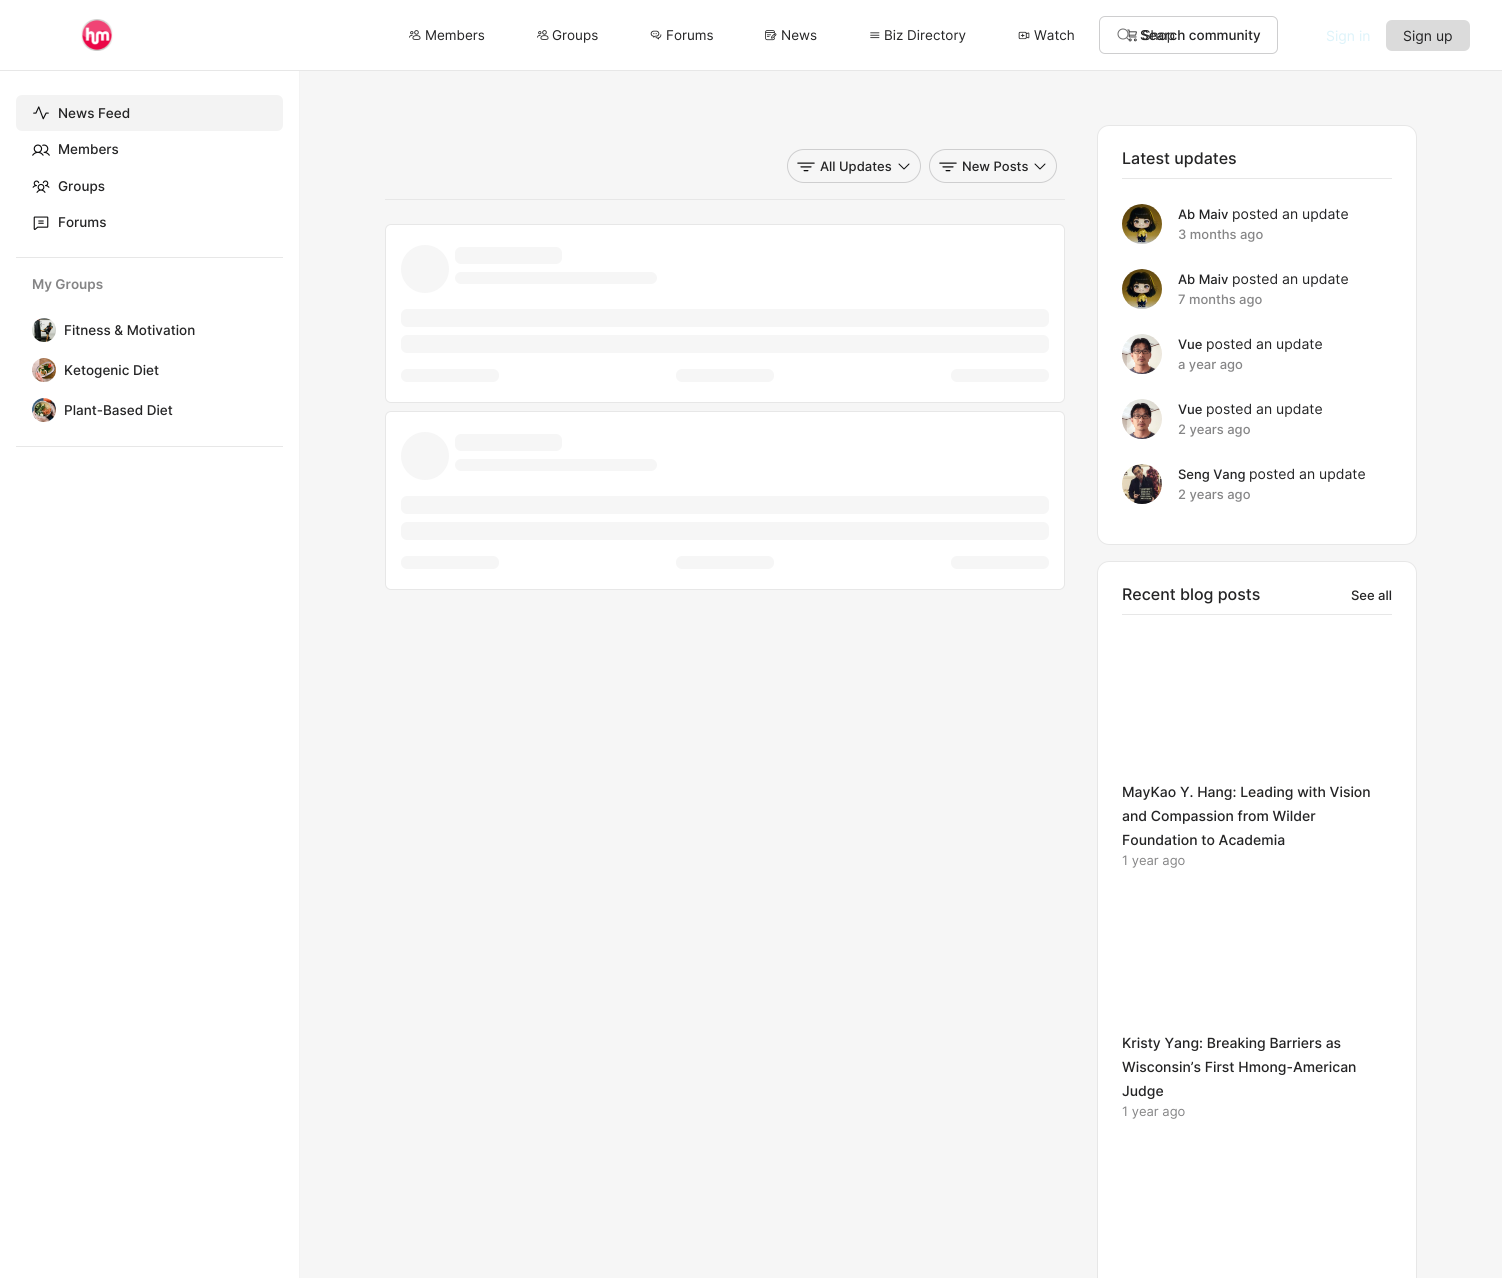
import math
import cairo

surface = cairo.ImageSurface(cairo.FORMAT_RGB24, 1502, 1278)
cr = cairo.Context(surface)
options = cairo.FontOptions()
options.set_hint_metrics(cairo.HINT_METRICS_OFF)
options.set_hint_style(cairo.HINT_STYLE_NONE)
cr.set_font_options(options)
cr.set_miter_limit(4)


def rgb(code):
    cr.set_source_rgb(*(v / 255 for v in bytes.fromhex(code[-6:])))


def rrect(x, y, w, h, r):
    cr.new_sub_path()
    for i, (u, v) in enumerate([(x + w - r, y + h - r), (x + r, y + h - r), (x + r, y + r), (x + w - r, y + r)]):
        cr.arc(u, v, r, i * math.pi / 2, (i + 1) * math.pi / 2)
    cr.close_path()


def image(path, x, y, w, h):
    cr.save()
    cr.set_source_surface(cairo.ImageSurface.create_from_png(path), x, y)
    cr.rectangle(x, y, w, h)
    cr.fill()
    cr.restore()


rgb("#ffffff")
cr.paint()
rgb("#f3f3f3")
cr.rectangle(299, 71, 1, 1207)
cr.fill()
rgb("#e7e7e7")
cr.rectangle(16, 257, 267, 1)
cr.fill()
rgb("#f3f3f3")
rrect(16, 95, 267, 36, 6)
cr.fill()
image("img/1.png", 33, 106, 16, 14)
image("img/2.png", 32, 144, 18, 12)
image("img/3.png", 32, 180, 18, 13)
image("img/4.png", 33, 216, 16, 14)
rgb("#e7e7e7")
cr.rectangle(16, 446, 267, 1)
cr.fill()
image("img/5.png", 32, 318, 24, 24)
image("img/6.png", 32, 358, 24, 24)
image("img/7.png", 32, 398, 24, 24)
rgb("#f6f6f6")
cr.rectangle(300, 71, 1202, 1207)
cr.fill()
rgb("#e7e7e7")
cr.rectangle(0, 70, 1502, 1)
cr.fill()
image("img/8.png", 81, 19, 32, 32)
image("img/9.png", 409, 30, 12, 10)
image("img/9.png", 537, 30, 12, 10)
image("img/10.png", 650, 30, 12, 10)
image("img/11.png", 765, 30, 12, 11)
image("img/12.png", 870, 32, 10, 7)
image("img/13.png", 1018, 31, 12, 9)
image("img/14.png", 1127, 29, 10, 13)
rrect(1099.5, 16.5, 178, 37, 5.5)
rgb("#cececf")
cr.set_line_width(1)
cr.stroke()
image("img/15.png", 1117, 28, 14, 14)
rgb("#dbdbdb")
rrect(1386, 20, 84, 31, 6)
cr.fill()
rgb("#e7e7e7")
cr.rectangle(385, 199, 680, 1)
cr.fill()
rrect(787.5, 149.5, 133, 33, 16.5)
rgb("#cececf")
cr.stroke()
image("img/16.png", 797, 162, 18, 10)
image("img/17.png", 898, 163, 12, 7)
rrect(929.5, 149.5, 127, 33, 16.5)
cr.stroke()
image("img/16.png", 939, 162, 18, 10)
image("img/17.png", 1034, 163, 12, 7)
rgb("#ffffff")
rrect(385.5, 224.5, 679, 178, 5.5)
cr.fill_preserve()
rgb("#e7e7e7")
cr.stroke()
rgb("#f6f6f6")
cr.arc(425, 269, 24, 0, 2 * math.pi)
cr.fill()
rrect(455, 247, 107, 17, 6)
cr.fill()
rrect(455, 272, 202, 12, 6)
cr.fill()
rrect(401, 309, 648, 18, 6)
cr.fill()
rrect(401, 335, 648, 18, 6)
cr.fill()
rrect(401, 369, 98, 13, 6)
cr.fill()
rrect(676, 369, 98, 13, 6)
cr.fill()
rrect(951, 369, 98, 13, 6)
cr.fill()
rgb("#ffffff")
rrect(385.5, 411.5, 679, 178, 5.5)
cr.fill_preserve()
rgb("#e7e7e7")
cr.stroke()
rgb("#f6f6f6")
cr.arc(425, 456, 24, 0, 2 * math.pi)
cr.fill()
rrect(455, 434, 107, 17, 6)
cr.fill()
rrect(455, 459, 202, 12, 6)
cr.fill()
rrect(401, 496, 648, 18, 6)
cr.fill()
rrect(401, 522, 648, 18, 6)
cr.fill()
rrect(401, 556, 98, 13, 6)
cr.fill()
rrect(676, 556, 98, 13, 6)
cr.fill()
rrect(951, 556, 98, 13, 6)
cr.fill()
rgb("#ffffff")
rrect(1097.5, 125.5, 319, 419, 11.5)
cr.fill_preserve()
rgb("#e7e7e7")
cr.stroke()
cr.rectangle(1122, 178, 270, 1)
cr.fill()
image("img/18.png", 1122, 204, 40, 40)
image("img/19.png", 1122, 269, 40, 40)
image("img/20.png", 1122, 334, 40, 40)
image("img/20.png", 1122, 399, 40, 40)
image("img/21.png", 1122, 464, 40, 40)
rgb("#ffffff")
rrect(1097.5, 561.5, 319, 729, 11.5)
cr.fill_preserve()
rgb("#e7e7e7")
cr.stroke()
cr.rectangle(1122, 614, 270, 1)
cr.fill()
cr.select_font_face("Inter Medium")
cr.set_font_size(13.5)
rgb("#242425")
for x, y, s in [
    (58, 118, "News Feed"),
    (58, 154, "Members"),
    (58, 191, "Groups"),
    (58, 227, "Forums"),
]:
    cr.move_to(x, y)
    cr.show_text(s)
cr.select_font_face("Inter SemiBold")
rgb("#858586")
cr.move_to(32, 289)
cr.show_text("My Groups")
cr.select_font_face("Inter Medium")
rgb("#242425")
for x, y, s in [
    (64, 335, "Fitness & Motivation"),
    (64, 375, "Ketogenic Diet"),
    (64, 415, "Plant-Based Diet"),
]:
    cr.move_to(x, y)
    cr.show_text(s)
cr.select_font_face("Inter")
for x, y, s in [
    (425, 40, "Members"),
    (552, 40, "Groups"),
    (666, 40, "Forums"),
    (781, 40, "News"),
    (884, 40, "Biz Directory"),
    (1034, 40, "Watch"),
    (1142, 40, "Shop"),
]:
    cr.move_to(x, y)
    cr.show_text(s)
cr.select_font_face("Inter Medium")
cr.move_to(1140, 40)
cr.show_text("Search community")
cr.select_font_face("Inter")
cr.set_font_size(14)
rgb("#ddf3fa")
cr.move_to(1326, 41)
cr.show_text("Sign in")
rgb("#242425")
cr.move_to(1403, 41)
cr.show_text("Sign up")
cr.select_font_face("Inter Medium")
cr.set_font_size(13)
cr.move_to(820, 171)
cr.show_text("All Updates")
cr.move_to(962, 171)
cr.show_text("New Posts")
cr.set_font_size(16)
cr.move_to(1122, 164)
cr.show_text("Latest updates")
cr.set_font_size(13)
cr.move_to(1178, 219)
cr.show_text("Ab Maiv")
cr.select_font_face("Inter")
cr.set_font_size(14)
cr.move_to(1232, 219)
cr.show_text("posted an update")
cr.select_font_face("Inter Medium")
cr.set_font_size(13)
rgb("#858586")
cr.move_to(1178, 239)
cr.show_text("3 months ago")
rgb("#242425")
cr.move_to(1178, 284)
cr.show_text("Ab Maiv")
cr.select_font_face("Inter")
cr.set_font_size(14)
cr.move_to(1232, 284)
cr.show_text("posted an update")
cr.select_font_face("Inter Medium")
cr.set_font_size(13)
rgb("#858586")
cr.move_to(1178, 304)
cr.show_text("7 months ago")
rgb("#242425")
cr.move_to(1178, 349)
cr.show_text("Vue")
cr.select_font_face("Inter")
cr.set_font_size(14)
cr.move_to(1206, 349)
cr.show_text("posted an update")
cr.select_font_face("Inter Medium")
cr.set_font_size(13)
rgb("#858586")
cr.move_to(1178, 369)
cr.show_text("a year ago")
rgb("#242425")
cr.move_to(1178, 414)
cr.show_text("Vue")
cr.select_font_face("Inter")
cr.set_font_size(14)
cr.move_to(1206, 414)
cr.show_text("posted an update")
cr.select_font_face("Inter Medium")
cr.set_font_size(13)
rgb("#858586")
cr.move_to(1178, 434)
cr.show_text("2 years ago")
rgb("#242425")
cr.move_to(1178, 479)
cr.show_text("Seng Vang")
cr.select_font_face("Inter")
cr.set_font_size(14)
cr.move_to(1249, 479)
cr.show_text("posted an update")
cr.select_font_face("Inter Medium")
cr.set_font_size(13)
rgb("#858586")
cr.move_to(1178, 499)
cr.show_text("2 years ago")
cr.set_font_size(16)
rgb("#242425")
cr.move_to(1122, 600)
cr.show_text("Recent blog posts")
cr.set_font_size(13)
cr.move_to(1351, 600)
cr.show_text("See all")
cr.set_font_size(14)
for x, y, s in [
    (1122, 797, "MayKao Y. Hang: Leading with Vision"),
    (1122, 821, "and Compassion from Wilder"),
    (1122, 845, "Foundation to Academia"),
]:
    cr.move_to(x, y)
    cr.show_text(s)
cr.select_font_face("Inter")
cr.set_font_size(13)
rgb("#858586")
cr.move_to(1122, 865)
cr.show_text("1 year ago")
cr.select_font_face("Inter Medium")
cr.set_font_size(14)
rgb("#242425")
for x, y, s in [
    (1122, 1048, "Kristy Yang: Breaking Barriers as"),
    (1122, 1072, "Wisconsin’s First Hmong-American"),
    (1122, 1096, "Judge"),
]:
    cr.move_to(x, y)
    cr.show_text(s)
cr.select_font_face("Inter")
cr.set_font_size(13)
rgb("#858586")
cr.move_to(1122, 1116)
cr.show_text("1 year ago")
surface.write_to_png("page.png")
